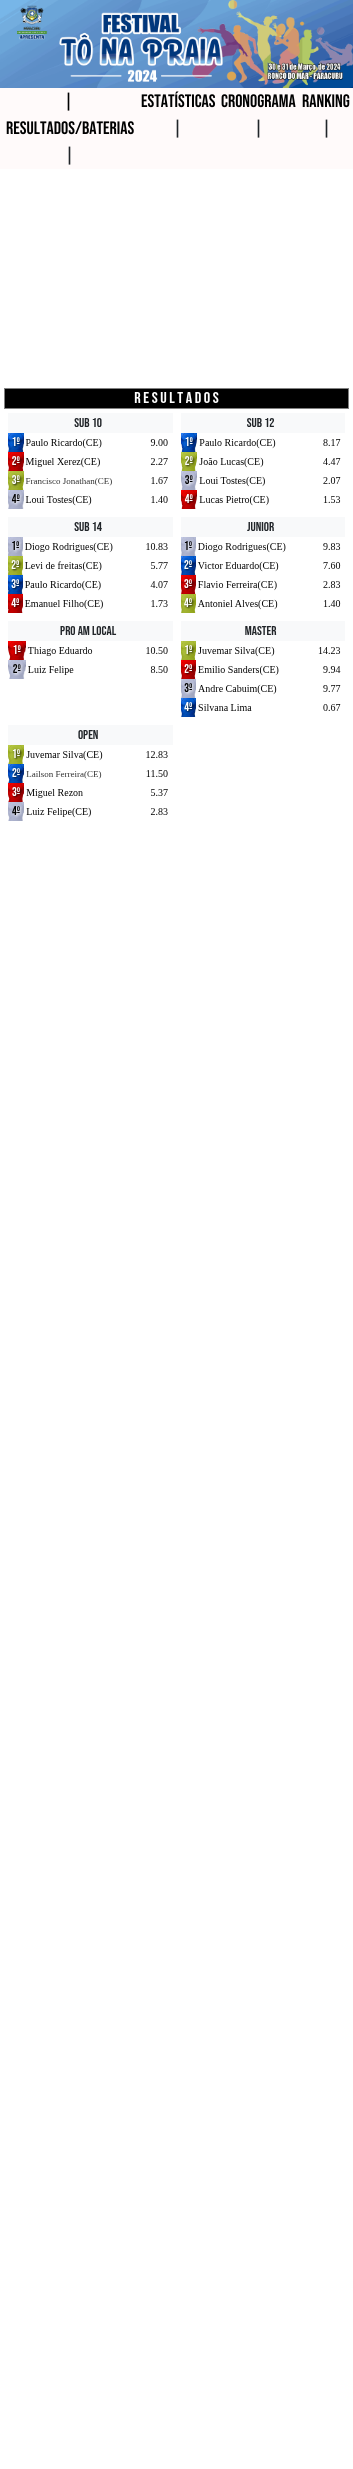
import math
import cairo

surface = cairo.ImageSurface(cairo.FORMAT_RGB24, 353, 2469)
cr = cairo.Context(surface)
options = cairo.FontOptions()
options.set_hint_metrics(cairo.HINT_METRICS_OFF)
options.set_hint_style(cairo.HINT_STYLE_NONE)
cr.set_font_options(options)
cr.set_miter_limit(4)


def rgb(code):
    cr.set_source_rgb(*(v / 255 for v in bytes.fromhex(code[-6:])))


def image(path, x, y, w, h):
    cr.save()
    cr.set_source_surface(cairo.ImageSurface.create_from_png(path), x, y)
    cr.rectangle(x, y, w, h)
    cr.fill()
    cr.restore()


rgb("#ffffff")
cr.paint()
image("img/1.png", 0, 0, 353, 88)
rgb("#fffafa")
cr.rectangle(0, 88, 353, 81)
cr.fill()
image("img/2.png", 4, 388, 345, 433)
cr.select_font_face("Bebas Neue")
cr.set_font_size(18)
rgb("#000000")
cr.move_to(64, 107)
cr.show_text("|")
cr.move_to(6, 134)
cr.show_text("RESULTADOS/BATERIAS")
rgb("#212529")
cr.move_to(65, 161)
cr.show_text("|")
rgb("#000000")
cr.move_to(141, 107)
cr.show_text("ESTATÍSTICAS")
rgb("#212529")
cr.move_to(173, 134)
cr.show_text("|")
rgb("#000000")
cr.move_to(221, 107)
cr.show_text("CRONOGRAMA")
rgb("#212529")
cr.move_to(254, 134)
cr.show_text("|")
rgb("#000000")
cr.move_to(302, 107)
cr.show_text("RANKING")
rgb("#212529")
cr.move_to(322, 134)
cr.show_text("|")
surface.write_to_png("page.png")
